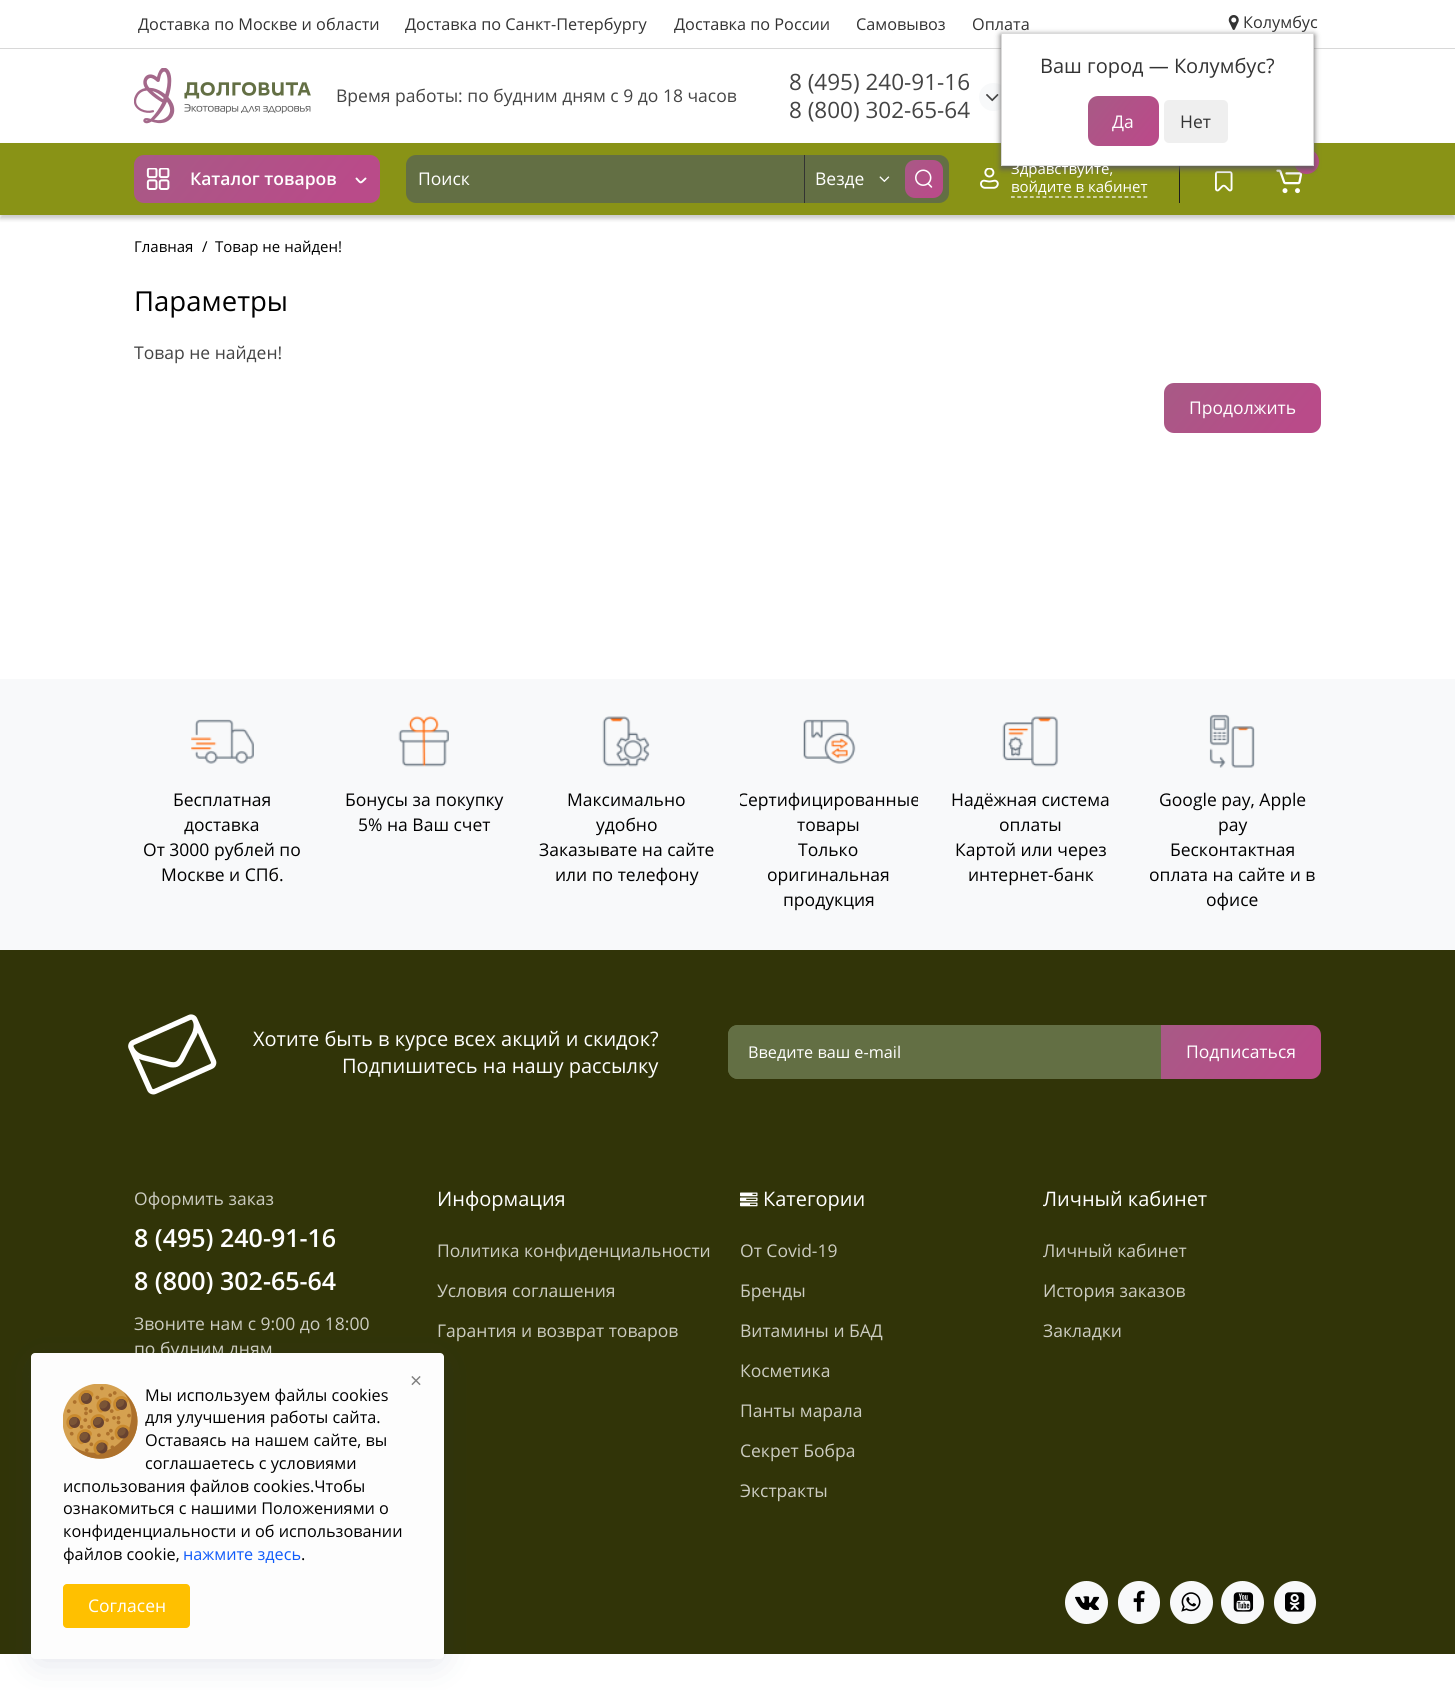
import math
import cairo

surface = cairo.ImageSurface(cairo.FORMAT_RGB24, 1455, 1690)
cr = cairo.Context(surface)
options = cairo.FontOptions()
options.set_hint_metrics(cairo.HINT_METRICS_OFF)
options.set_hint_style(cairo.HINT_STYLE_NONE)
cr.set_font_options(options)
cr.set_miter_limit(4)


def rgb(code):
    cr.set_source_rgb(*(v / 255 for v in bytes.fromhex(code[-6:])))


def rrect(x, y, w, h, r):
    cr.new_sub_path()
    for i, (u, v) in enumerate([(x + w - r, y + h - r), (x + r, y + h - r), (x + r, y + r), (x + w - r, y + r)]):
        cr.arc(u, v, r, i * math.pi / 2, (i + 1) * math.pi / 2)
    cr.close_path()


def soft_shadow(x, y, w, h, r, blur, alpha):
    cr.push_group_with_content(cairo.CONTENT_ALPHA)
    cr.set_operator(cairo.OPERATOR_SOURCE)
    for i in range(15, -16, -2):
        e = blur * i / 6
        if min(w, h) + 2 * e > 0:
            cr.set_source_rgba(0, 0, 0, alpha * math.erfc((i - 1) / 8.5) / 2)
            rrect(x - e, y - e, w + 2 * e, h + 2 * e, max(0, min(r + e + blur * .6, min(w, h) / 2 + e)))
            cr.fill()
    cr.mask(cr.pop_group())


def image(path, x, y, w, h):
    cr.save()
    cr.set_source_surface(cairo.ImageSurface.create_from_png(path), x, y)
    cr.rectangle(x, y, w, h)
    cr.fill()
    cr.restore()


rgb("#ffffff")
cr.paint()
rgb("#d8d8d8")
cr.rectangle(0, 48, 1455, 1)
cr.fill()
image("img/1.png", 1228, 15, 11, 15)
rgb("#f8f9fa")
rrect(979, 83, 29, 28, 14)
cr.fill()
image("img/3.png", 986, 94, 13, 8)
rgb("#000000")
soft_shadow(0, 146, 1455, 73, 0, 2, 0.2)
rgb("#899316")
cr.rectangle(0, 143, 1455, 72)
cr.fill()
image("img/7.png", 980, 168, 19, 21)
rgb("#1d1d1d")
cr.rectangle(1179, 166, 1, 37)
cr.fill()
image("img/8.png", 1215, 171, 18, 21)
image("img/9.png", 1276, 169, 27, 25)
rgb("#b94b89")
cr.arc(1306.5, 161.5, 12.5, 0, 2 * math.pi)
cr.fill()
rgb("#5b5a5a")
soft_shadow(1001, 35, 313, 134, 0, 3, 1)
rgb("#ffffff")
cr.rectangle(1001.5, 33.5, 312, 132)
cr.fill_preserve()
rgb("#dadada")
cr.set_line_width(1)
cr.stroke()
gradient = cairo.LinearGradient(1077, 84, 1157, 149)
gradient.add_color_stop_rgba(0, 0.643, 0.365, 0.522, 1)
gradient.add_color_stop_rgba(0.86, 0.725, 0.294, 0.537, 1)
cr.set_source(gradient)
rrect(1088, 96, 71, 50, 10)
cr.fill()
rgb("#efefef")
rrect(1164, 100, 64, 43, 5)
cr.fill()
image("img/2.png", 134, 68, 177, 56)
gradient = cairo.LinearGradient(140, 84, 343, 248)
gradient.add_color_stop_rgba(0, 0.643, 0.365, 0.522, 1)
gradient.add_color_stop_rgba(0.86, 0.725, 0.294, 0.537, 1)
cr.set_source(gradient)
rrect(134, 155, 246, 48, 10)
cr.fill()
image("img/4.png", 146, 168, 24, 22)
cr.new_path()
cr.move_to(365.5, 178.5)
cr.curve_to(360, 183.5, 361.5, 184, 356.5, 178.5)
rgb("#ffffff")
cr.set_line_width(1.9)
cr.set_line_cap(cairo.LINE_CAP_ROUND)
cr.stroke()
rgb("#636f44")
cr.new_path()
cr.move_to(416, 155)
cr.line_to(804, 155)
cr.line_to(804, 203)
cr.line_to(416, 203)
cr.curve_to(410.5, 203, 406, 198.5, 406, 193)
cr.line_to(406, 165)
cr.curve_to(406, 159.5, 410.5, 155, 416, 155)
cr.close_path()
cr.fill()
rgb("#333333")
cr.rectangle(804, 155, 1, 48)
cr.fill()
rgb("#636f44")
cr.rectangle(805, 155, 94, 48)
cr.fill()
image("img/5.png", 879, 176, 11, 6)
cr.new_path()
cr.move_to(899, 155)
cr.line_to(939, 155)
cr.curve_to(944.5, 155, 949, 159.5, 949, 165)
cr.line_to(949, 193)
cr.curve_to(949, 198.5, 944.5, 203, 939, 203)
cr.line_to(899, 203)
cr.close_path()
cr.fill()
gradient = cairo.LinearGradient(896, 156, 944, 195)
gradient.add_color_stop_rgba(0, 0.643, 0.365, 0.522, 1)
gradient.add_color_stop_rgba(0.86, 0.725, 0.294, 0.537, 1)
cr.set_source(gradient)
rrect(905, 160, 38, 38, 10)
cr.fill()
image("img/6.png", 915, 169, 18, 19)
cr.new_path()
cr.move_to(1011, 197)
cr.line_to(1147.5, 197)
rgb("#ffffff")
cr.set_line_width(1.2)
cr.set_line_cap(cairo.LINE_CAP_BUTT)
cr.set_dash([3.75, 2.56])
cr.stroke()
gradient = cairo.LinearGradient(1162, 342, 1302, 456)
gradient.add_color_stop_rgba(0, 0.643, 0.365, 0.522, 1)
gradient.add_color_stop_rgba(0.86, 0.725, 0.294, 0.537, 1)
cr.set_source(gradient)
rrect(1164, 383, 157, 50, 10)
cr.fill()
rgb("#f8f9fa")
cr.rectangle(0, 679, 1455, 271)
cr.fill()
image("img/10.png", 191, 719, 63, 45)
image("img/11.png", 398, 716, 51, 51)
image("img/12.png", 602, 716, 48, 51)
image("img/13.png", 803, 719, 53, 45)
image("img/14.png", 1002, 716, 57, 51)
image("img/15.png", 1209, 714, 46, 54)
rgb("#313408")
cr.rectangle(0, 950, 1455, 704)
cr.fill()
image("img/16.png", 128, 1014, 89, 81)
rgb("#636f44")
cr.new_path()
cr.move_to(738, 1025)
cr.line_to(1163, 1025)
cr.line_to(1163, 1079)
cr.line_to(738, 1079)
cr.curve_to(732.5, 1079, 728, 1074.5, 728, 1069)
cr.line_to(728, 1035)
cr.curve_to(728, 1029.5, 732.5, 1025, 738, 1025)
cr.close_path()
cr.fill()
cr.set_fill_rule(cairo.FILL_RULE_EVEN_ODD)
cr.new_path()
cr.move_to(738, 1025)
cr.line_to(1162, 1025)
cr.line_to(1162, 1079)
cr.line_to(738, 1079)
cr.curve_to(732, 1079, 728, 1074, 728, 1069)
cr.line_to(728, 1035)
cr.curve_to(728, 1029, 732, 1025, 738, 1025)
cr.close_path()
cr.move_to(738, 1026)
cr.line_to(1162, 1026)
cr.line_to(1162, 1078)
cr.line_to(738, 1078)
cr.curve_to(733, 1078, 729, 1074, 729, 1069)
cr.line_to(729, 1035)
cr.curve_to(729, 1030, 733, 1026, 738, 1026)
cr.close_path()
cr.fill()
gradient = cairo.LinearGradient(1158, 984, 1303, 1102)
gradient.add_color_stop_rgba(0, 0.643, 0.365, 0.522, 1)
gradient.add_color_stop_rgba(0.86, 0.725, 0.294, 0.537, 1)
cr.set_source(gradient)
cr.new_path()
cr.move_to(1161, 1025)
cr.line_to(1311, 1025)
cr.curve_to(1316.5, 1025, 1321, 1029.5, 1321, 1035)
cr.line_to(1321, 1069)
cr.curve_to(1321, 1074.5, 1316.5, 1079, 1311, 1079)
cr.line_to(1161, 1079)
cr.close_path()
cr.fill()
image("img/17.png", 740, 1192, 18, 15)
rgb("#f8f9fa")
cr.arc(1086.5, 1602.5, 21.5, 0, 2 * math.pi)
cr.fill()
image("img/18.png", 1075, 1596, 25, 14)
rrect(1118, 1581, 42, 43, 21)
cr.fill()
image("img/19.png", 1133, 1590, 12, 22)
cr.arc(1191.5, 1602.5, 21.5, 0, 2 * math.pi)
cr.fill()
image("img/20.png", 1181, 1592, 20, 20)
cr.arc(1242.5, 1602.5, 21.5, 0, 2 * math.pi)
cr.fill()
image("img/21.png", 1233, 1592, 21, 20)
rrect(1274, 1581, 42, 43, 21)
cr.fill()
image("img/22.png", 1285, 1592, 20, 20)
rgb("#223865")
soft_shadow(38, 1365, 400, 294, 0, 19, 0.15)
cr.select_font_face("Open Sans")
cr.set_font_size(16.25)
rgb("#333333")
for x, y, s in [
    (138, 30, "Доставка по Москве и области"),
    (405, 30, "Доставка по Санкт-Петербургу"),
    (674, 30, "Доставка по России"),
    (856, 30, "Самовывоз"),
    (972, 30, "Оплата"),
    (1243, 28, "Колумбус"),
]:
    cr.move_to(x, y)
    cr.show_text(s)
cr.set_font_size(20)
cr.move_to(1040, 73)
cr.show_text("Ваш город — Колумбус?")
cr.set_font_size(17.5)
rgb("#ffffff")
cr.move_to(1112, 128)
cr.show_text("Да")
rgb("#333333")
cr.move_to(1180, 128)
cr.show_text("Нет")
rgb("#444444")
cr.move_to(336, 102)
cr.show_text("Время работы: по будним дням с 9 до 18 часов")
cr.set_font_size(22.5)
cr.move_to(789, 90)
cr.show_text("8 (495) 240-91-16")
cr.move_to(789, 118)
cr.show_text("8 (800) 302-65-64")
cr.select_font_face("Open Sans SemiBold")
cr.set_font_size(17.5)
rgb("#ffffff")
cr.move_to(190, 185)
cr.show_text("Каталог товаров")
cr.select_font_face("Open Sans")
cr.move_to(418, 185)
cr.show_text("Поиск")
cr.move_to(815, 185)
cr.show_text("Везде")
cr.set_font_size(15)
cr.move_to(1011, 174)
cr.show_text("Здравствуйте,")
cr.move_to(1011, 192)
cr.show_text("войдите в кабинет")
rgb("#000000")
for x, y, s in [
    (134, 252, "Главная"),
    (202, 252, "/"),
    (215, 252, "Товар не найден!"),
]:
    cr.move_to(x, y)
    cr.show_text(s)
cr.set_font_size(27.5)
cr.move_to(134, 311)
cr.show_text("Параметры")
cr.set_font_size(17.5)
rgb("#444444")
cr.move_to(134, 359)
cr.show_text("Товар не найден!")
rgb("#ffffff")
cr.move_to(1189, 414)
cr.show_text("Продолжить")
rgb("#000000")
for x, y, s in [
    (173, 806, "Бесплатная"),
    (184, 831, "доставка"),
    (143, 856, "От 3000 рублей по"),
    (161, 881, "Москве и СПб."),
    (345, 806, "Бонусы за покупку"),
    (358, 831, "5% на Ваш счет"),
    (567, 806, "Максимально"),
    (596, 831, "удобно"),
    (539, 856, "Заказывате на сайте"),
    (555, 881, "или по телефону"),
]:
    cr.move_to(x, y)
    cr.show_text(s)
cr.save()
cr.set_fill_rule(cairo.FILL_RULE_WINDING)
cr.rectangle(740, 710, 178, 203)
cr.clip()
cr.move_to(737, 806)
cr.show_text("Сертифицированные")
cr.restore()
for x, y, s in [
    (797, 831, "товары"),
    (798, 856, "Только"),
    (767, 881, "оригинальная"),
    (783, 906, "продукция"),
    (951, 806, "Надёжная система"),
    (999, 831, "оплаты"),
    (955, 856, "Картой или через"),
    (968, 881, "интернет-банк"),
    (1159, 806, "Google pay, Apple"),
    (1218, 831, "pay"),
    (1170, 856, "Бесконтактная"),
    (1149, 881, "оплата на сайте и в"),
    (1206, 906, "офисе"),
]:
    cr.move_to(x, y)
    cr.show_text(s)
cr.set_font_size(20)
rgb("#ffffff")
cr.move_to(253, 1046)
cr.show_text("Хотите быть в курсе всех акций и скидок?")
cr.move_to(342, 1073)
cr.show_text("Подпишитесь на нашу рассылку")
cr.set_font_size(16.25)
cr.move_to(748, 1058)
cr.show_text("Введите ваш e-mail")
cr.set_font_size(17.5)
cr.move_to(1186, 1058)
cr.show_text("Подписаться")
rgb("#ccccc1")
cr.move_to(134, 1205)
cr.show_text("Оформить заказ")
cr.select_font_face("Open Sans SemiBold")
cr.set_font_size(25)
rgb("#ffffff")
cr.move_to(134, 1247)
cr.show_text("8 (495) 240-91-16")
cr.move_to(134, 1290)
cr.show_text("8 (800) 302-65-64")
cr.select_font_face("Open Sans")
cr.set_font_size(17.5)
rgb("#ccccc1")
cr.move_to(134, 1330)
cr.show_text("Звоните нам с 9:00 до 18:00")
cr.move_to(134, 1355)
cr.show_text("по будним дням")
cr.set_font_size(20)
rgb("#ffffff")
cr.move_to(437, 1206)
cr.show_text("Информация")
cr.set_font_size(17.5)
rgb("#ccccc1")
for x, y, s in [
    (437, 1257, "Политика конфиденциальности"),
    (437, 1297, "Условия соглашения"),
    (437, 1337, "Гарантия и возврат товаров"),
]:
    cr.move_to(x, y)
    cr.show_text(s)
cr.set_font_size(20)
rgb("#ffffff")
cr.move_to(763, 1206)
cr.show_text("Категории")
cr.set_font_size(17.5)
rgb("#ccccc1")
for x, y, s in [
    (740, 1257, "От Covid-19"),
    (740, 1297, "Бренды"),
    (740, 1337, "Витамины и БАД"),
    (740, 1377, "Косметика"),
    (740, 1417, "Панты марала"),
    (740, 1457, "Секрет Бобра"),
    (740, 1497, "Экстракты"),
]:
    cr.move_to(x, y)
    cr.show_text(s)
cr.set_font_size(20)
rgb("#ffffff")
cr.move_to(1043, 1206)
cr.show_text("Личный кабинет")
cr.set_font_size(17.5)
rgb("#ccccc1")
for x, y, s in [
    (1043, 1257, "Личный кабинет"),
    (1043, 1297, "История заказов"),
    (1043, 1337, "Закладки"),
]:
    cr.move_to(x, y)
    cr.show_text(s)
rgb("#fdfdfd")
rrect(31, 1353, 413, 306, 4)
cr.fill()
cr.set_font_size(21)
rgb("#7f7f7f")
cr.move_to(410, 1388)
cr.show_text("×")
image("img/23.png", 63, 1384, 75, 75)
cr.set_font_size(16.25)
rgb("#000000")
for x, y, s in [
    (145, 1401, "Мы используем файлы cookies"),
    (145, 1423, "для улучшения работы сайта."),
    (145, 1446, "Оставаясь на нашем сайте, вы"),
    (145, 1469, "соглашаетесь с условиями"),
    (63, 1492, "использования файлов cookies.Чтобы"),
    (63, 1514, "ознакомиться с нашими Положениями о"),
    (63, 1537, "конфиденциальности и об использовании"),
    (63, 1560, "файлов cookie,"),
]:
    cr.move_to(x, y)
    cr.show_text(s)
rgb("#115cfa")
cr.move_to(183, 1560)
cr.show_text("нажмите здесь")
rgb("#000000")
cr.move_to(301, 1560)
cr.show_text(".")
rgb("#ffc000")
rrect(63, 1584, 127, 44, 4)
cr.fill()
cr.set_font_size(17.5)
rgb("#ffffff")
cr.move_to(88, 1612)
cr.show_text("Согласен")
surface.write_to_png("page.png")
